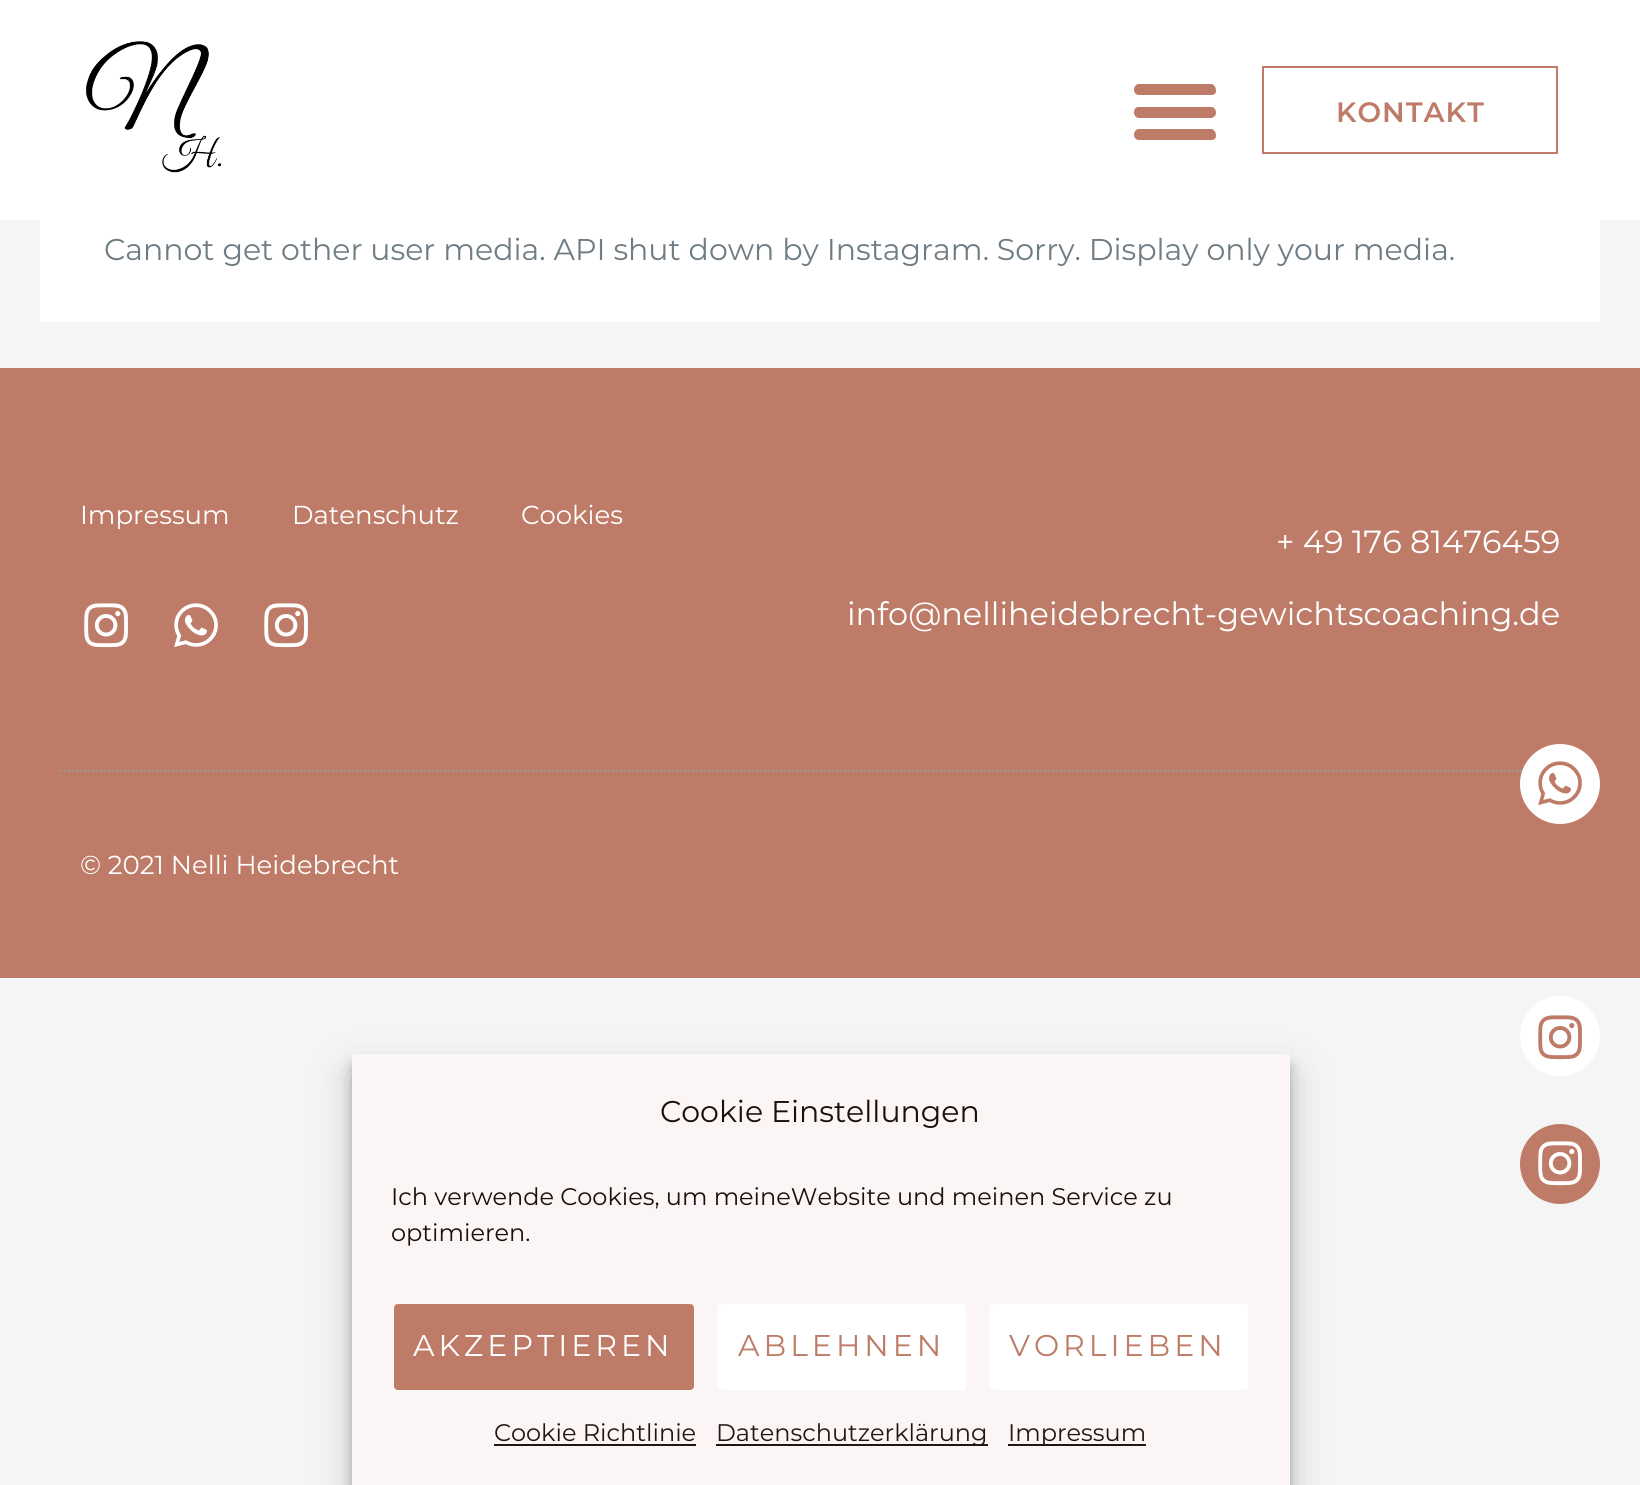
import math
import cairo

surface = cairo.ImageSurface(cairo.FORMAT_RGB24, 1640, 1485)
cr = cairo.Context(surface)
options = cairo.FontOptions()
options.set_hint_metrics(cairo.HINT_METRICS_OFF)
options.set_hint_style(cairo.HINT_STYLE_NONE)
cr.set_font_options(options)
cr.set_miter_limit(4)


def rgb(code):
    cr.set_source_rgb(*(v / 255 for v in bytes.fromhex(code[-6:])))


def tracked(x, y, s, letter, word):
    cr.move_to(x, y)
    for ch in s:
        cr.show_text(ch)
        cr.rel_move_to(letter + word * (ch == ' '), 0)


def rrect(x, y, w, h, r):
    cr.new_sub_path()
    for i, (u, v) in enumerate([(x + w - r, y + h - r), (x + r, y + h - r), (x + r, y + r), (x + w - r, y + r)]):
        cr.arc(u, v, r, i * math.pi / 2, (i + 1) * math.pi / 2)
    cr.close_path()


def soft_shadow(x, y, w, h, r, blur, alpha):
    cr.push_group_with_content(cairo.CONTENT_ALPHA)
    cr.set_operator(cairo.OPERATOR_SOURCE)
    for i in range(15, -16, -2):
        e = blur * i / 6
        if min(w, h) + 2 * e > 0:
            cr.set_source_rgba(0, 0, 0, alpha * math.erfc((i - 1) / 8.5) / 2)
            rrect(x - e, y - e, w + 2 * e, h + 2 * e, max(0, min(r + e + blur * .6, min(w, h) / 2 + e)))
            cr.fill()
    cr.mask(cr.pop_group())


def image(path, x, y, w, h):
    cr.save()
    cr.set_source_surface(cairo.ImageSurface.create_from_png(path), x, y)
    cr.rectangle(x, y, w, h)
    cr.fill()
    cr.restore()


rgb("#f5f5f5")
cr.paint()
rgb("#ffffff")
cr.rectangle(0, 0, 1640, 220)
cr.fill()
image("img/1.png", 86, 41, 136, 132)
rgb("#be7c68")
cr.new_path()
cr.move_to(1139, 95)
cr.line_to(1212, 95)
cr.line_to(1215, 94)
cr.curve_to(1217, 91, 1216, 86, 1212, 84)
cr.line_to(1138, 84)
cr.curve_to(1132, 86, 1133, 95, 1139, 95)
cr.close_path()
cr.move_to(1139, 118)
cr.line_to(1212, 118)
cr.line_to(1215, 116)
cr.curve_to(1217, 113, 1216, 108, 1212, 107)
cr.line_to(1138, 107)
cr.curve_to(1132, 108, 1133, 118, 1139, 118)
cr.close_path()
cr.move_to(1139, 140)
cr.line_to(1212, 140)
cr.line_to(1215, 139)
cr.curve_to(1217, 136, 1216, 131, 1212, 129)
cr.line_to(1138, 129)
cr.curve_to(1132, 131, 1133, 140, 1139, 140)
cr.close_path()
cr.fill()
cr.rectangle(1263, 67, 294, 86)
cr.stroke()
rgb("#ffffff")
cr.rectangle(40, 220, 1560, 102)
cr.fill()
rgb("#be7c68")
cr.rectangle(0, 368, 1640, 610)
cr.fill()
cr.new_path()
cr.move_to(60, 771)
cr.line_to(1580, 771)
rgb("#9b9b9b")
cr.set_dash([2, 2])
cr.stroke()
image("img/2.png", 84, 603, 44, 45)
image("img/3.png", 174, 603, 44, 45)
image("img/2.png", 264, 603, 44, 45)
rgb("#ffffff")
cr.arc(1560, 784, 40, 0, 2 * math.pi)
cr.fill()
image("img/4.png", 1538, 761, 44, 45)
cr.arc(1560, 1036, 40, 0, 2 * math.pi)
cr.fill()
image("img/5.png", 1538, 1015, 44, 45)
rgb("#be7c68")
cr.arc(1560, 1164, 40, 0, 2 * math.pi)
cr.fill()
image("img/2.png", 1538, 1141, 44, 45)
rgb("#000000")
soft_shadow(352, 1066, 938, 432, 0, 6, 0.23)
soft_shadow(352, 1074, 938, 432, 0, 20, 0.19)
rgb("#fbf6f5")
cr.rectangle(352, 1054, 938, 431)
cr.fill()
rgb("#be7c68")
rrect(393, 1303, 302, 88, 5)
cr.fill_preserve()
rgb("#fbf6f5")
cr.set_dash([])
cr.stroke()
rgb("#ffffff")
rrect(717, 1303, 250, 88, 5)
cr.fill_preserve()
rgb("#fbf6f5")
cr.stroke()
rgb("#ffffff")
rrect(989, 1303, 260, 88, 5)
cr.fill_preserve()
rgb("#fbf6f5")
cr.stroke()
for x, y, w, h, color in [
    (494, 1444, 202, 2, "#231515"),
    (716, 1444, 272, 2, "#231515"),
    (1008, 1444, 138, 2, "#231515"),
]:
    rgb(color)
    cr.rectangle(x, y, w, h)
    cr.fill()
cr.select_font_face("Montserrat SemiBold")
cr.set_font_size(28)
rgb("#be7c68")
tracked(1336, 122, "KONTAKT", 1, 0)
cr.select_font_face("Montserrat")
cr.set_font_size(30)
rgb("#707c84")
cr.move_to(104, 260)
cr.show_text("Cannot get other user media. API shut down by Instagram. Sorry. Display only your media.")
cr.set_font_size(26)
rgb("#ffffff")
for x, y, s in [
    (80, 524, "Impressum"),
    (292, 524, "Datenschutz"),
    (521, 524, "Cookies"),
]:
    cr.move_to(x, y)
    cr.show_text(s)
cr.set_font_size(32)
cr.move_to(1276, 553)
cr.show_text("+ 49 176 81476459")
cr.move_to(847, 625)
cr.show_text("info@nelliheidebrecht-gewichtscoaching.de")
cr.set_font_size(26)
cr.move_to(80, 874)
cr.show_text("© 2021 Nelli Heidebrecht")
cr.set_font_size(30)
rgb("#190f0f")
cr.move_to(660, 1122)
cr.show_text("Cookie Einstellungen")
cr.set_font_size(24)
cr.move_to(391, 1205)
cr.show_text("Ich verwende Cookies, um meineWebsite und meinen Service zu")
cr.move_to(391, 1241)
cr.show_text("optimieren.")
cr.set_font_size(30)
rgb("#ffffff")
tracked(413, 1356, "AKZEPTIEREN", 4, 0)
rgb("#be7c68")
tracked(738, 1356, "ABLEHNEN", 4, 0)
tracked(1009, 1356, "VORLIEBEN", 4, 0)
cr.set_font_size(24)
rgb("#231515")
for x, y, s in [
    (494, 1441, "Cookie Richtlinie"),
    (716, 1441, "Datenschutzerklärung"),
    (1008, 1441, "Impressum"),
]:
    cr.move_to(x, y)
    cr.show_text(s)
surface.write_to_png("page.png")
